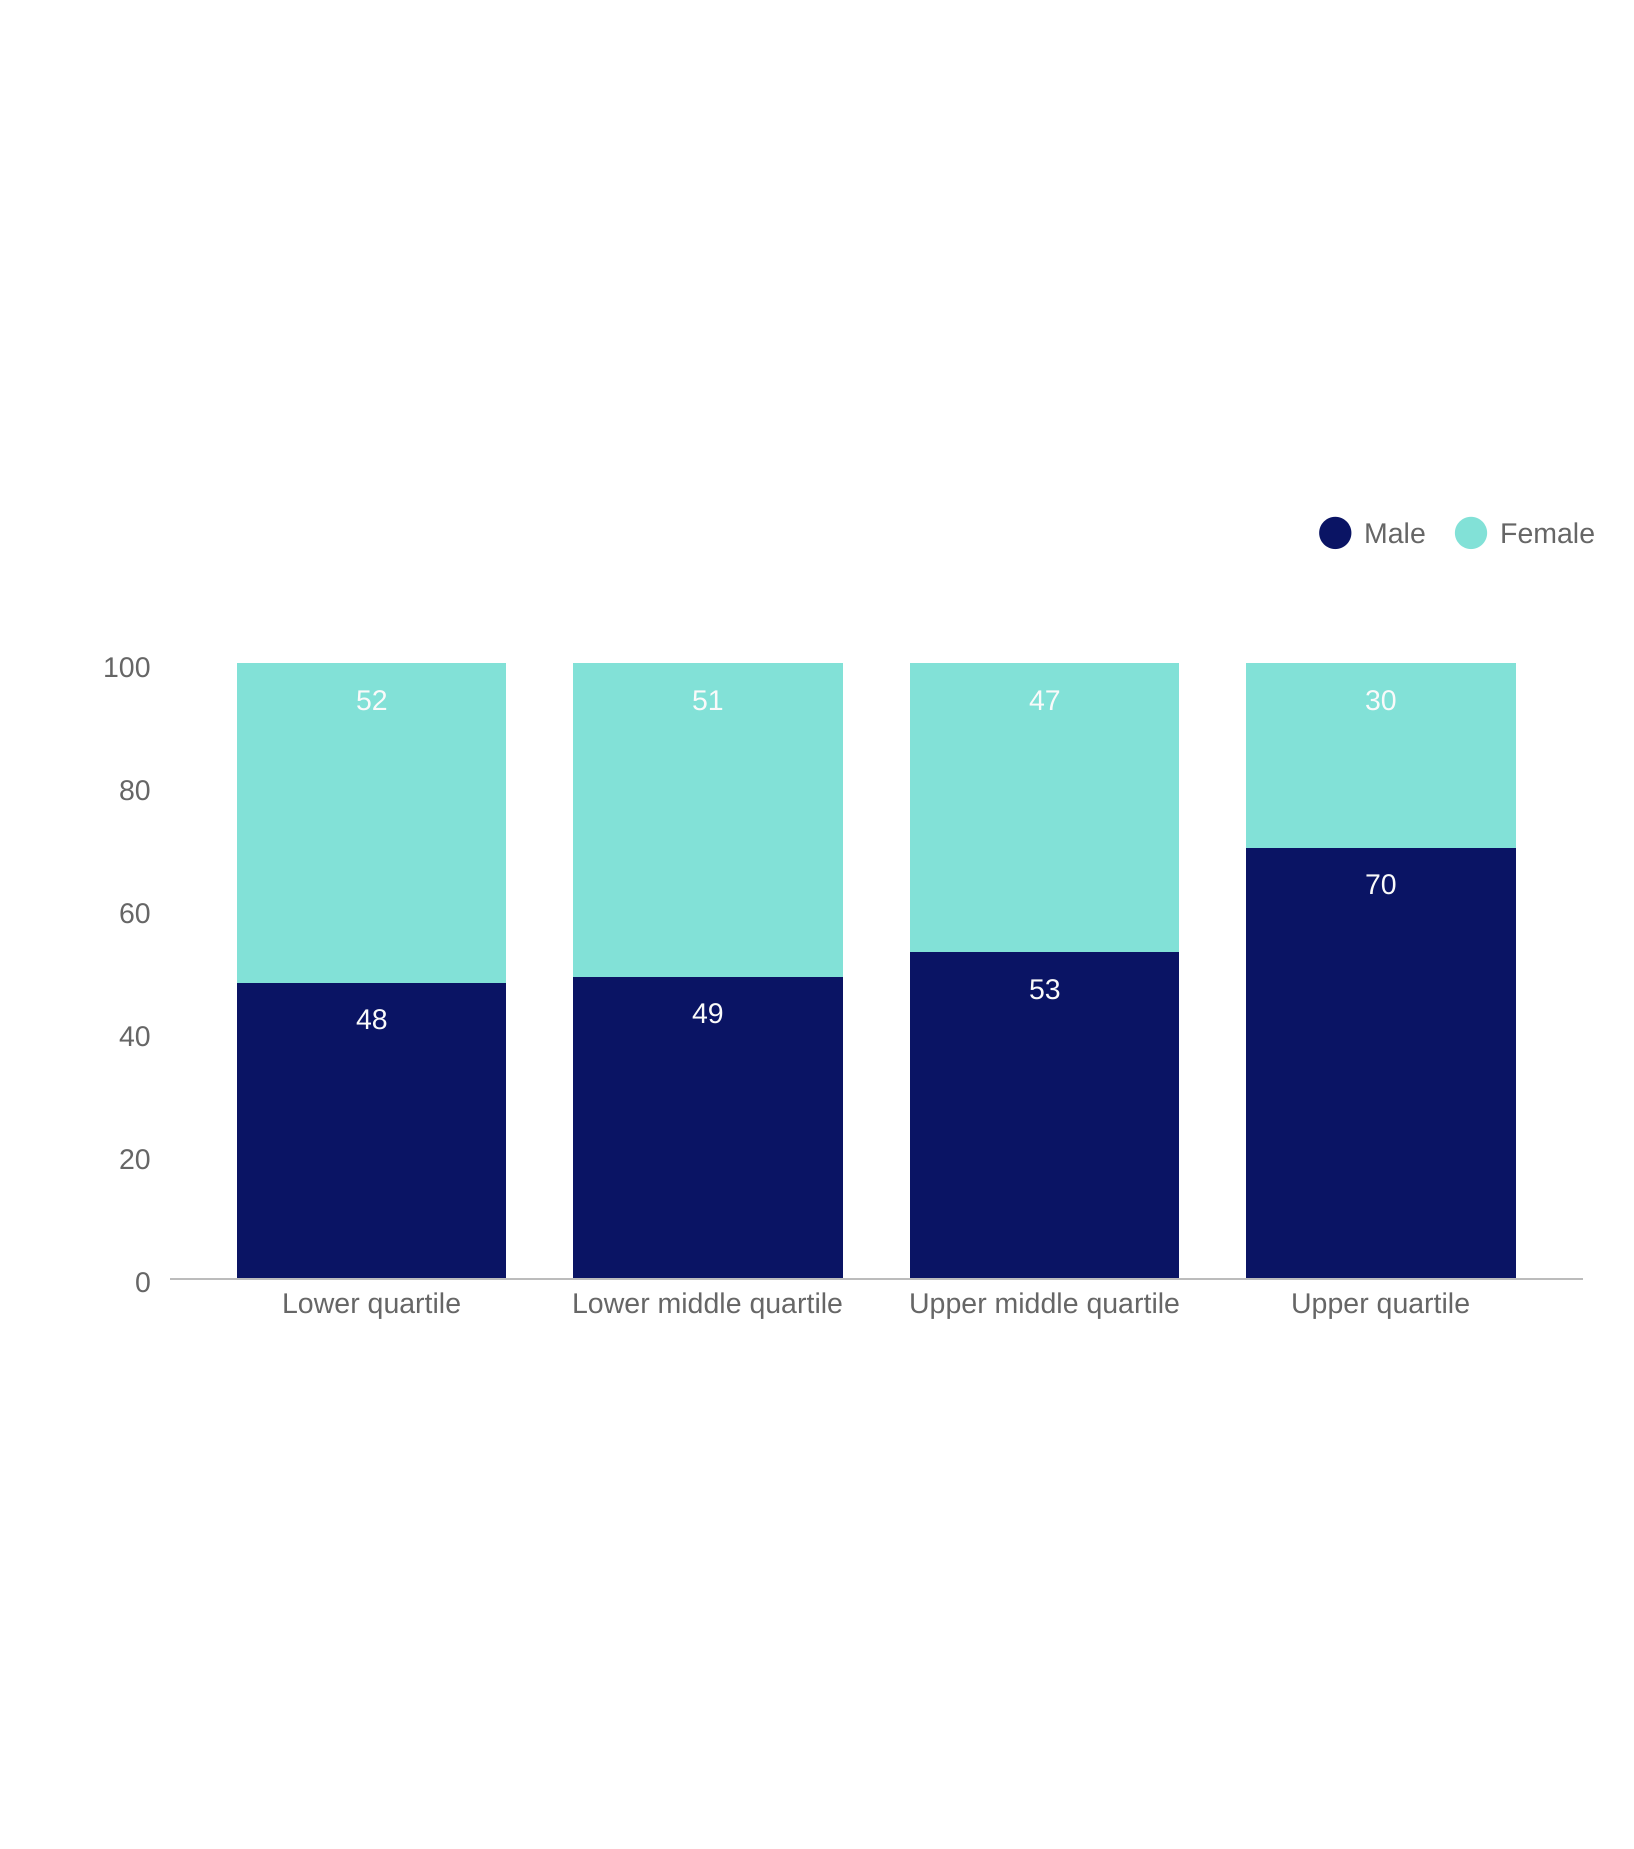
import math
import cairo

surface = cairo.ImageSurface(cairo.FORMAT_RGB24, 1634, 1849)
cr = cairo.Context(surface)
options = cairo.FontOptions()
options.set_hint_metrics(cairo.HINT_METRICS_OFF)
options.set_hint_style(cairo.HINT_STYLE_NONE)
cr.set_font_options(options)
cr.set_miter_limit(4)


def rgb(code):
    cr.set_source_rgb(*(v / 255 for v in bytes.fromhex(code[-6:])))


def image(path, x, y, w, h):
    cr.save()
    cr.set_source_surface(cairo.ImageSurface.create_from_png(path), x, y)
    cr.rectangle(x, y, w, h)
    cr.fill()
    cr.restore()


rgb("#ffffff")
cr.paint()
image("img/1.png", 170, 516, 1413, 764)
cr.select_font_face("Liberation Sans")
cr.set_font_size(28.5)
rgb("#666666")
for x, y, s in [
    (1364, 543, "Male"),
    (1500, 543, "Female"),
    (103, 677, "100"),
]:
    cr.move_to(x, y)
    cr.show_text(s)
rgb("#fafafa")
for x, y, s in [
    (356, 710, "52"),
    (692, 710, "51"),
    (1029, 710, "47"),
    (1365, 710, "30"),
]:
    cr.move_to(x, y)
    cr.show_text(s)
rgb("#666666")
cr.move_to(119, 800)
cr.show_text("80")
rgb("#fafafa")
cr.move_to(1365, 894)
cr.show_text("70")
rgb("#666666")
cr.move_to(119, 923)
cr.show_text("60")
rgb("#fafafa")
for x, y, s in [
    (1029, 999, "53"),
    (356, 1029, "48"),
    (692, 1023, "49"),
]:
    cr.move_to(x, y)
    cr.show_text(s)
rgb("#666666")
for x, y, s in [
    (119, 1046, "40"),
    (119, 1169, "20"),
    (135, 1292, "0"),
    (282, 1313, "Lower quartile"),
    (572, 1313, "Lower middle quartile"),
    (909, 1313, "Upper middle quartile"),
    (1291, 1313, "Upper quartile"),
]:
    cr.move_to(x, y)
    cr.show_text(s)
surface.write_to_png("page.png")
